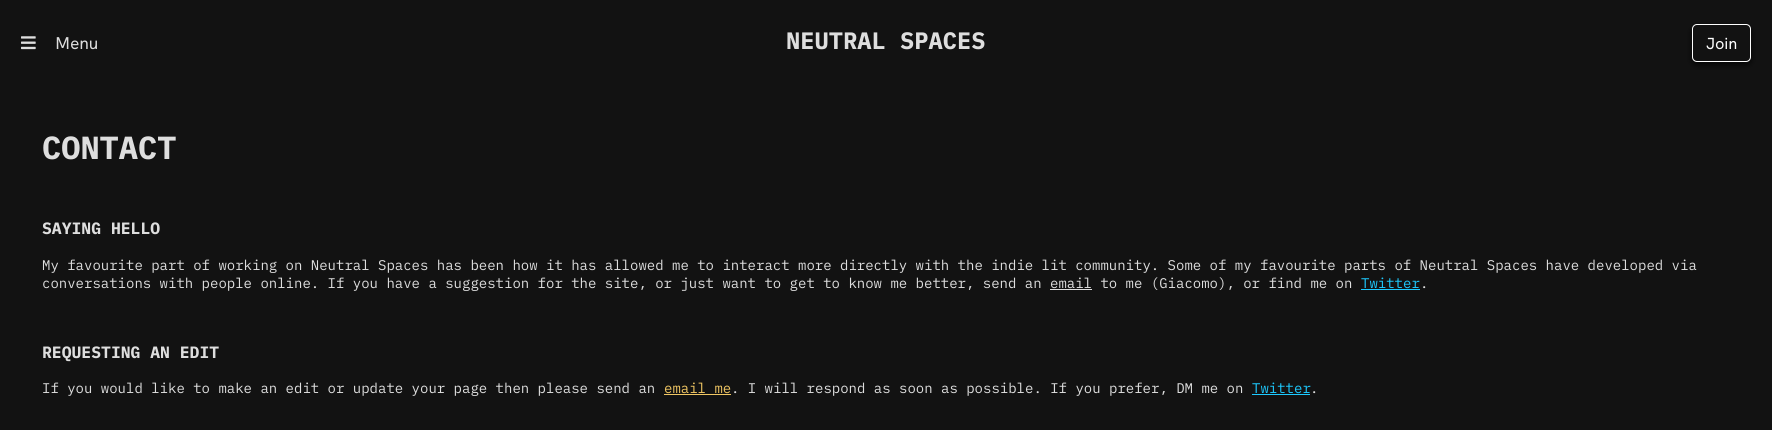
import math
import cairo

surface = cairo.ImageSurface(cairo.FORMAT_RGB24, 1772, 430)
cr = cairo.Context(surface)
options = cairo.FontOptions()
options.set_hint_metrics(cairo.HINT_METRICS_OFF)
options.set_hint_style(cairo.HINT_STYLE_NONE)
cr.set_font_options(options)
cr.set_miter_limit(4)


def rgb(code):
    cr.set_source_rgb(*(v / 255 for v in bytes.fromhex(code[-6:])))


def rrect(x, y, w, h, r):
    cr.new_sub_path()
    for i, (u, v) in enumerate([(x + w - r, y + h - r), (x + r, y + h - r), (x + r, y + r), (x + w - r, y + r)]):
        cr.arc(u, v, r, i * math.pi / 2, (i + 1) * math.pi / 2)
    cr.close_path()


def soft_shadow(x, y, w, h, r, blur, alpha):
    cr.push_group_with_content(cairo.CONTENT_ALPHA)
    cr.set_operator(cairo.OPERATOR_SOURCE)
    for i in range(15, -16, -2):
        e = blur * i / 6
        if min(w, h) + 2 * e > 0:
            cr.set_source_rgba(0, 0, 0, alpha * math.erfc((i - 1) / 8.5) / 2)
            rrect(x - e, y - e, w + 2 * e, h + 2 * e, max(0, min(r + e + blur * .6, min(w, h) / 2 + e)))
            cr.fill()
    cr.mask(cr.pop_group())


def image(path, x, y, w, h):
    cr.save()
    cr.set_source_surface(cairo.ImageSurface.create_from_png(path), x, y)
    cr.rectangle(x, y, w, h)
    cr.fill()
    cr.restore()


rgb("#121212")
cr.paint()
image("img/1.png", 21, 36, 15, 14)
cr.save()
cr.set_fill_rule(cairo.FILL_RULE_EVEN_ODD)
cr.new_path()
cr.move_to(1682, 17)
cr.line_to(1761, 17)
cr.line_to(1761, 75)
cr.line_to(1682, 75)
cr.close_path()
cr.move_to(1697, 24)
cr.line_to(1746, 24)
cr.curve_to(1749, 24, 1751, 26, 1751, 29)
cr.line_to(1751, 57)
cr.curve_to(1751, 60, 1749, 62, 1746, 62)
cr.line_to(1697, 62)
cr.curve_to(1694, 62, 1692, 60, 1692, 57)
cr.line_to(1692, 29)
cr.curve_to(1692, 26, 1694, 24, 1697, 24)
cr.close_path()
cr.clip()
rgb("#000000")
soft_shadow(1692, 27, 59, 38, 5, 3, 0.73)
cr.restore()
rrect(1692.5, 24.5, 58, 37, 4.5)
rgb("#ffffff")
cr.set_line_width(1)
cr.stroke()
for x, y, w, h, color in [
    (1361, 289, 59, 1, "#1dcaff"),
    (1050, 289, 42, 1, "#dedede"),
    (664, 394, 67, 1, "#f0c663"),
    (1252, 394, 58, 1, "#1dcaff"),
]:
    rgb(color)
    cr.rectangle(x, y, w, h)
    cr.fill()
cr.select_font_face("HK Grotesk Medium")
cr.set_font_size(17)
rgb("#dedede")
cr.move_to(55, 49)
cr.show_text("Menu")
cr.select_font_face("IBM Plex Mono", cairo.FONT_SLANT_NORMAL, cairo.FONT_WEIGHT_BOLD)
cr.set_font_size(23.75)
cr.move_to(786, 49)
cr.show_text("NEUTRAL SPACES")
cr.select_font_face("HK Grotesk Medium")
cr.set_font_size(16)
rgb("#ffffff")
cr.move_to(1706, 49)
cr.show_text("Join")
cr.select_font_face("IBM Plex Mono", cairo.FONT_SLANT_NORMAL, cairo.FONT_WEIGHT_BOLD)
cr.set_font_size(32)
rgb("#dedede")
cr.move_to(42, 159)
cr.show_text("CONTACT")
cr.set_font_size(16.4)
cr.move_to(42, 234)
cr.show_text("SAYING HELLO")
cr.select_font_face("IBM Plex Mono")
cr.set_font_size(14)
cr.move_to(42, 270)
cr.show_text("My favourite part of working on Neutral Spaces has been how it has allowed me to interact more directly with the indie lit community. Some of my favourite parts of Neutral Spaces have developed via")
cr.move_to(42, 288)
cr.show_text("conversations with people online. If you have a suggestion for the site, or just want to get to know me better, send an email to me (Giacomo), or find me on")
rgb("#1dcaff")
cr.move_to(1361, 288)
cr.show_text("Twitter")
rgb("#dedede")
cr.move_to(1420, 288)
cr.show_text(".")
cr.select_font_face("IBM Plex Mono", cairo.FONT_SLANT_NORMAL, cairo.FONT_WEIGHT_BOLD)
cr.set_font_size(16.4)
cr.move_to(42, 358)
cr.show_text("REQUESTING AN EDIT")
cr.select_font_face("IBM Plex Mono")
cr.set_font_size(14)
cr.move_to(42, 393)
cr.show_text("If you would like to make an edit or update your page then please send an")
rgb("#f0c663")
cr.move_to(664, 393)
cr.show_text("email me")
rgb("#dedede")
cr.move_to(731, 393)
cr.show_text(". I will respond as soon as possible. If you prefer, DM me on")
rgb("#1dcaff")
cr.move_to(1252, 393)
cr.show_text("Twitter")
rgb("#dedede")
cr.move_to(1310, 393)
cr.show_text(".")
surface.write_to_png("page.png")
